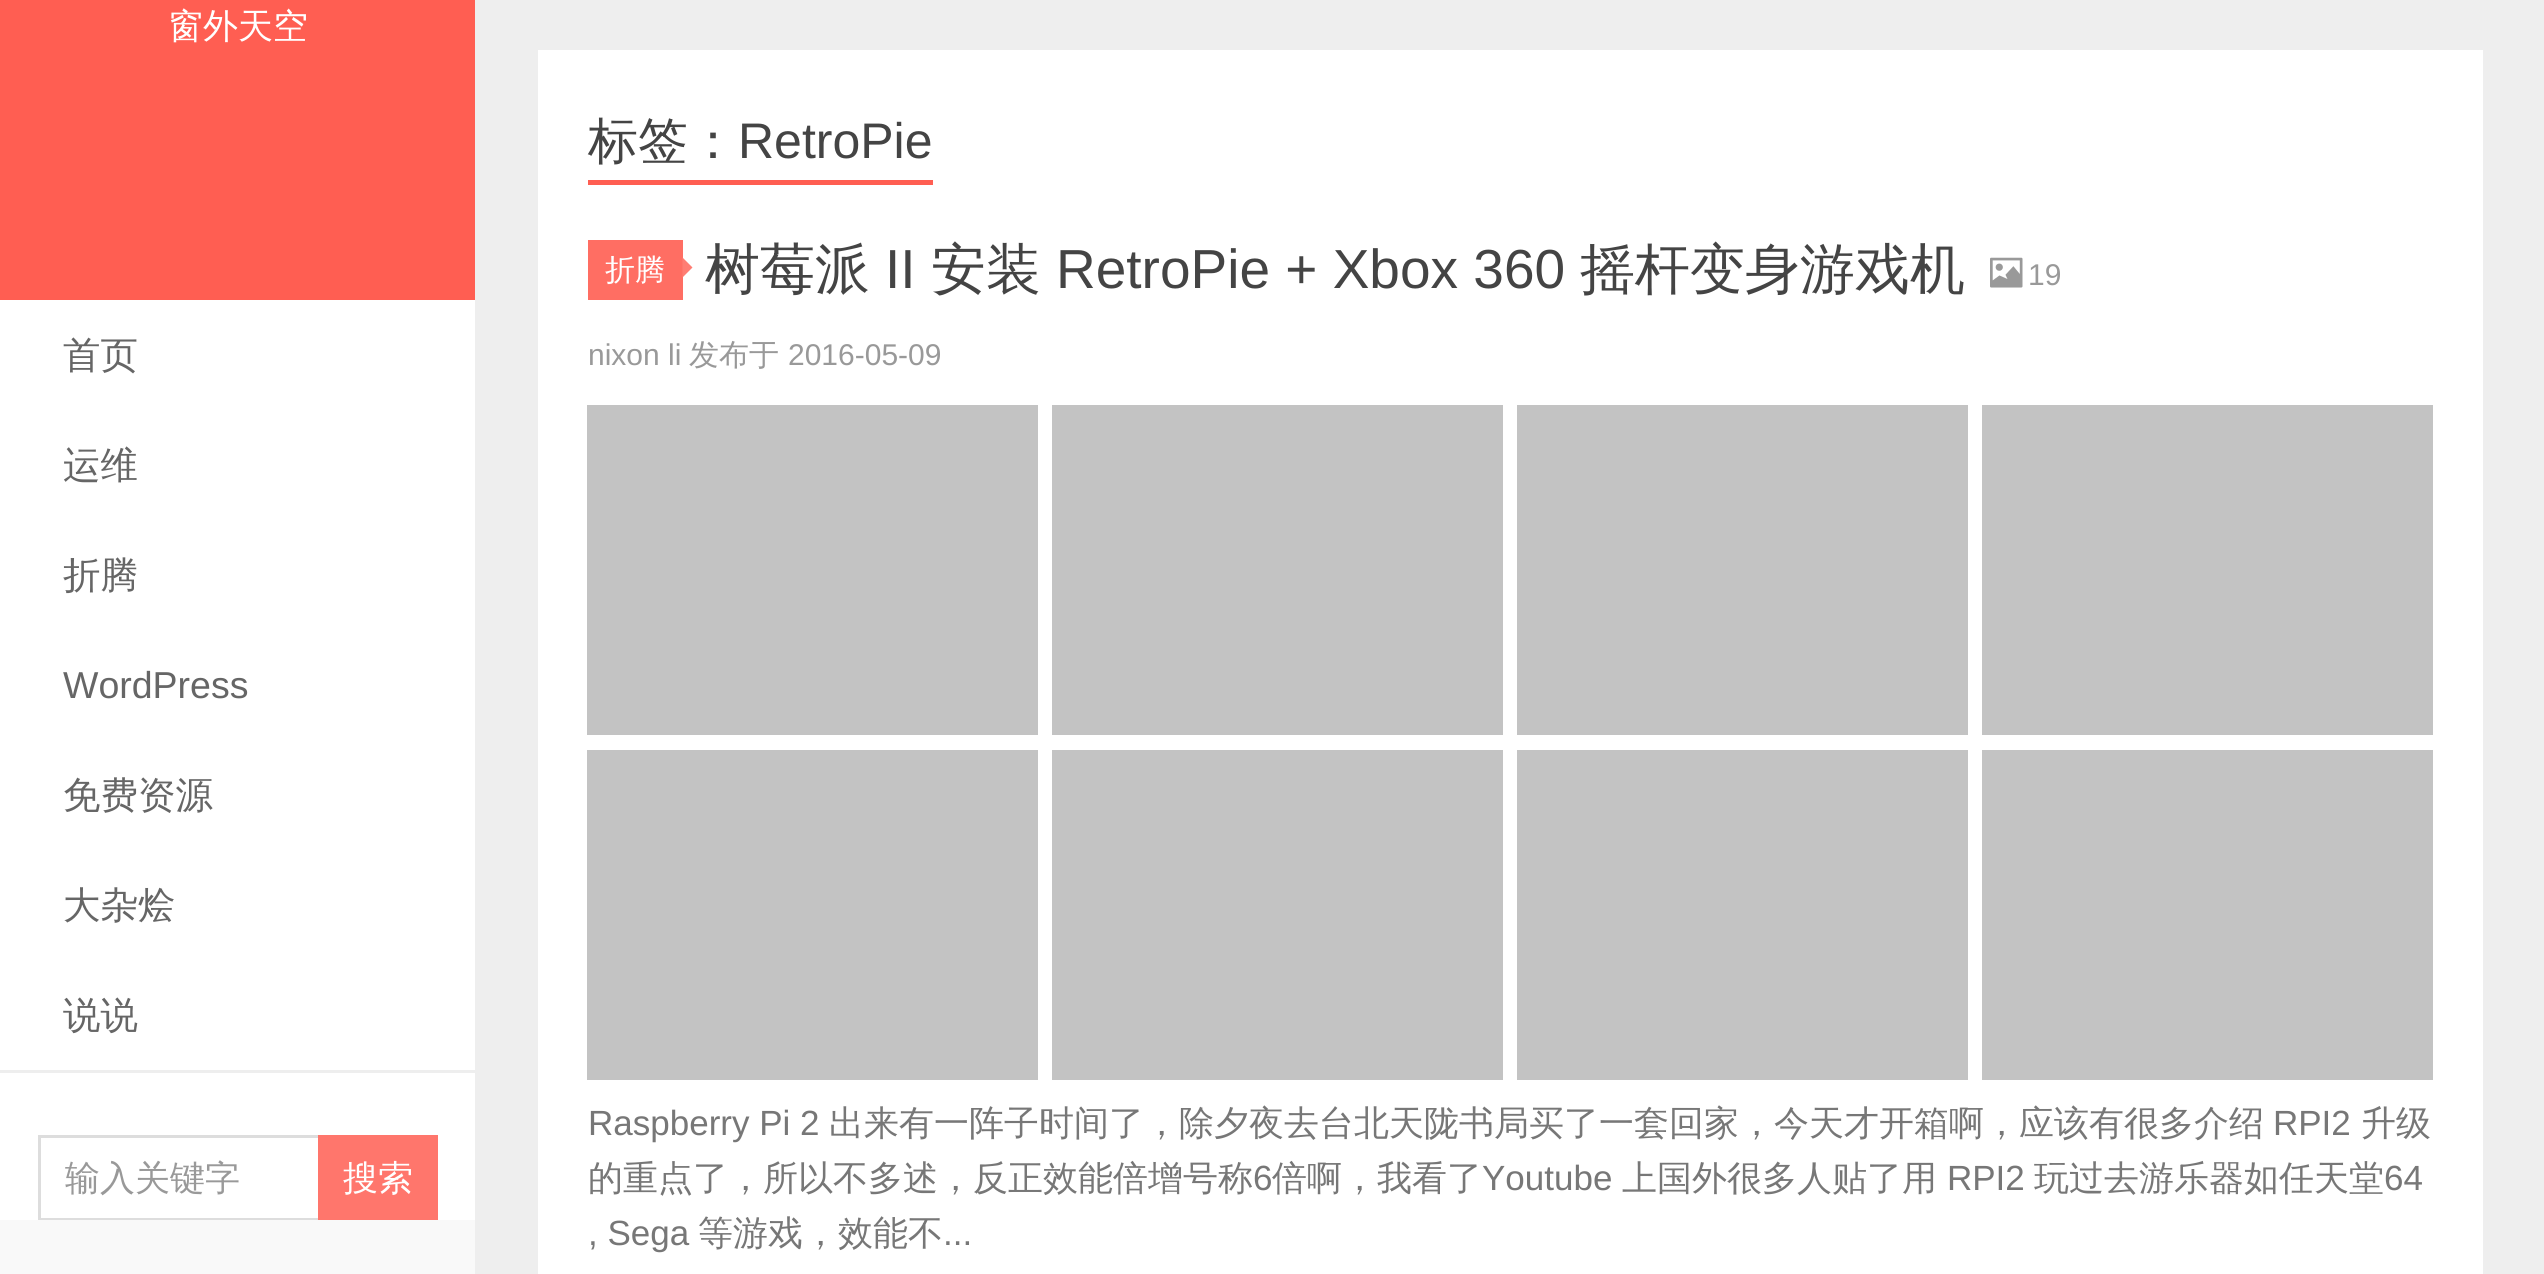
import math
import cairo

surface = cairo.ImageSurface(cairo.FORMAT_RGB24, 2544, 1274)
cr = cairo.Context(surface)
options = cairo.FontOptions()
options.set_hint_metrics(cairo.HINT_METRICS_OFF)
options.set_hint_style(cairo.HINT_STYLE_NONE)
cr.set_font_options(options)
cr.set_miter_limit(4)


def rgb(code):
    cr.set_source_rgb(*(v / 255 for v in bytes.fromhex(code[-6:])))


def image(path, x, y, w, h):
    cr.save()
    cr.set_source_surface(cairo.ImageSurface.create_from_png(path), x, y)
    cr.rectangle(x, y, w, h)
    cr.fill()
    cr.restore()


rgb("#eeeeee")
cr.paint()
for x, y, w, h, color in [
    (0, 300, 475, 920, "#ffffff"),
    (0, 0, 475, 300, "#ff5e52"),
    (0, 1070, 475, 3, "#eeeeee"),
    (38, 1135, 280, 3, "#dddddd"),
    (38, 1218, 280, 2, "#dddddd"),
    (38, 1135, 3, 85, "#dddddd"),
    (318, 1135, 120, 85, "#ff766c"),
    (0, 1220, 475, 54, "#f9f9f9"),
    (538, 50, 1945, 1224, "#ffffff"),
    (588, 180, 345, 5, "#ff5e52"),
    (588, 240, 95, 60, "#ff6e63"),
]:
    rgb(color)
    cr.rectangle(x, y, w, h)
    cr.fill()
rgb("#ff7d73")
cr.new_path()
cr.move_to(682.5, 277.5)
cr.line_to(682.5, 257.5)
cr.line_to(692.5, 267.5)
cr.close_path()
cr.fill()
image("img/1.png", 1990, 257, 33, 31)
for x, y, w, h, color in [
    (587, 405, 451, 330, "#c3c3c3"),
    (1052, 405, 451, 330, "#c3c3c3"),
    (1517, 405, 451, 330, "#c3c3c3"),
    (1982, 405, 451, 330, "#c3c3c3"),
    (587, 750, 451, 330, "#c3c3c3"),
    (1052, 750, 451, 330, "#c3c3c3"),
    (1517, 750, 451, 330, "#c3c3c3"),
    (1982, 750, 451, 330, "#c3c3c3"),
]:
    rgb(color)
    cr.rectangle(x, y, w, h)
    cr.fill()
cr.select_font_face("WenQuanYi Zen Hei Medium")
cr.set_font_size(35)
rgb("#ffffff")
cr.move_to(168, 38)
cr.show_text("窗外天空")
cr.set_font_size(37.5)
rgb("#666666")
for x, y, s in [
    (63, 368, "首页"),
    (63, 478, "运维"),
    (63, 588, "折腾"),
]:
    cr.move_to(x, y)
    cr.show_text(s)
cr.select_font_face("Liberation Sans")
cr.move_to(63, 698)
cr.show_text("WordPress")
cr.select_font_face("WenQuanYi Zen Hei Medium")
for x, y, s in [
    (63, 808, "免费资源"),
    (63, 918, "大杂烩"),
    (63, 1028, "说说"),
]:
    cr.move_to(x, y)
    cr.show_text(s)
cr.set_font_size(35)
rgb("#999999")
cr.move_to(65, 1190)
cr.show_text("输入关键字")
rgb("#ffffff")
cr.move_to(343, 1190)
cr.show_text("搜索")
cr.set_font_size(50)
rgb("#444444")
cr.move_to(588, 158)
cr.show_text("标签：")
cr.select_font_face("Liberation Sans")
cr.move_to(738, 158)
cr.show_text("RetroPie")
cr.select_font_face("WenQuanYi Zen Hei Medium")
cr.set_font_size(30)
rgb("#ffffff")
cr.move_to(605, 280)
cr.show_text("折腾")
cr.set_font_size(55)
rgb("#444444")
cr.move_to(705, 288)
cr.show_text("树莓派")
cr.select_font_face("Liberation Sans")
cr.move_to(885, 288)
cr.show_text("II")
cr.select_font_face("WenQuanYi Zen Hei Medium")
cr.move_to(931, 288)
cr.show_text("安装")
cr.select_font_face("Liberation Sans")
cr.move_to(1056, 288)
cr.show_text("RetroPie + Xbox 360")
cr.select_font_face("WenQuanYi Zen Hei Medium")
cr.move_to(1580, 288)
cr.show_text("摇杆变身游戏机")
cr.select_font_face("Liberation Sans")
cr.set_font_size(30)
rgb("#999999")
cr.move_to(2028, 285)
cr.show_text("19")
cr.move_to(588, 365)
cr.show_text("nixon li")
cr.select_font_face("WenQuanYi Zen Hei Medium")
cr.move_to(689, 365)
cr.show_text("发布于")
cr.select_font_face("Liberation Sans")
cr.move_to(788, 365)
cr.show_text("2016-05-09")
cr.set_font_size(35)
rgb("#777777")
cr.move_to(588, 1135)
cr.show_text("Raspberry Pi 2")
cr.select_font_face("WenQuanYi Zen Hei Medium")
cr.move_to(829, 1135)
cr.show_text("出来有一阵子时间了，除夕夜去台北天陇书局买了一套回家，今天才开箱啊，应该有很多介绍")
cr.select_font_face("Liberation Sans")
cr.move_to(2273, 1135)
cr.show_text("RPI2")
cr.select_font_face("WenQuanYi Zen Hei Medium")
cr.move_to(2361, 1135)
cr.show_text("升级")
cr.move_to(588, 1190)
cr.show_text("的重点了，所以不多述，反正效能倍增号称")
cr.select_font_face("Liberation Sans")
cr.move_to(1253, 1190)
cr.show_text("6")
cr.select_font_face("WenQuanYi Zen Hei Medium")
cr.move_to(1272, 1190)
cr.show_text("倍啊，我看了")
cr.select_font_face("Liberation Sans")
cr.move_to(1482, 1190)
cr.show_text("Youtube")
cr.select_font_face("WenQuanYi Zen Hei Medium")
cr.move_to(1622, 1190)
cr.show_text("上国外很多人贴了用")
cr.select_font_face("Liberation Sans")
cr.move_to(1947, 1190)
cr.show_text("RPI2")
cr.select_font_face("WenQuanYi Zen Hei Medium")
cr.move_to(2034, 1190)
cr.show_text("玩过去游乐器如任天堂")
cr.select_font_face("Liberation Sans")
cr.move_to(2384, 1190)
cr.show_text("64")
cr.move_to(588, 1245)
cr.show_text(", Sega")
cr.select_font_face("WenQuanYi Zen Hei Medium")
cr.move_to(698, 1245)
cr.show_text("等游戏，效能不")
cr.select_font_face("Liberation Sans")
cr.move_to(943, 1245)
cr.show_text("...")
surface.write_to_png("page.png")
